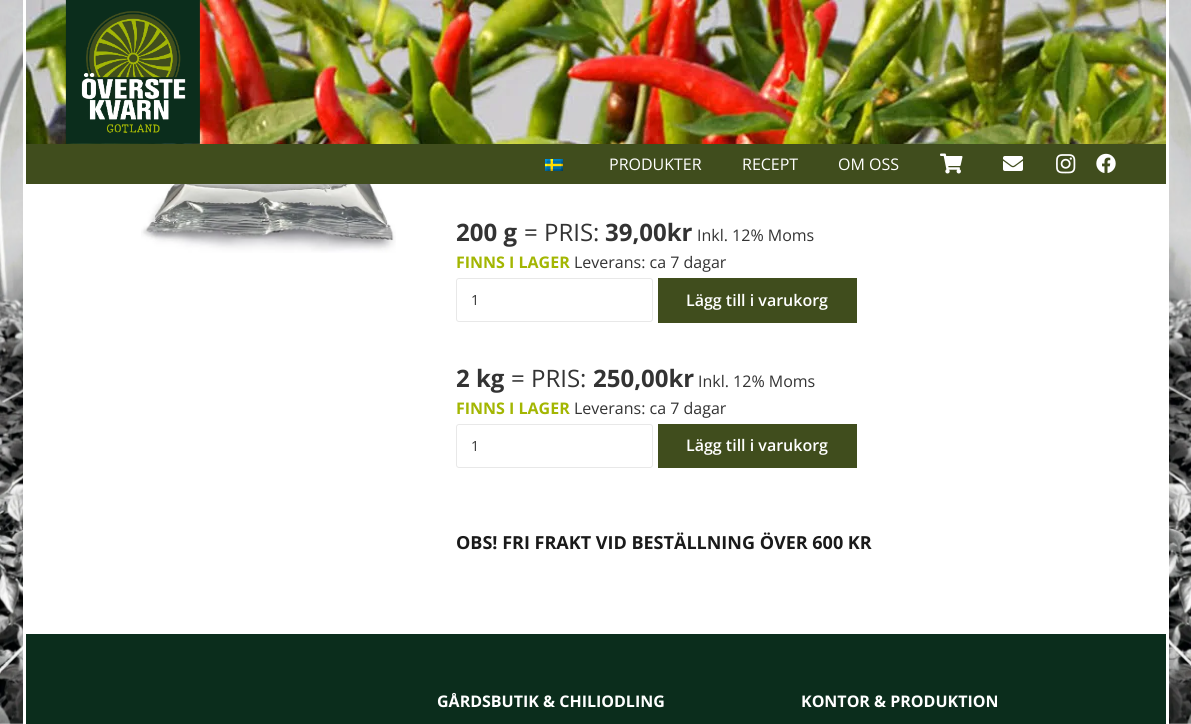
import math
import cairo

surface = cairo.ImageSurface(cairo.FORMAT_RGB24, 1191, 724)
cr = cairo.Context(surface)
options = cairo.FontOptions()
options.set_hint_metrics(cairo.HINT_METRICS_OFF)
options.set_hint_style(cairo.HINT_STYLE_NONE)
cr.set_font_options(options)
cr.set_miter_limit(4)


def rgb(code):
    cr.set_source_rgb(*(v / 255 for v in bytes.fromhex(code[-6:])))


def rrect(x, y, w, h, r):
    cr.new_sub_path()
    for i, (u, v) in enumerate([(x + w - r, y + h - r), (x + r, y + h - r), (x + r, y + r), (x + w - r, y + r)]):
        cr.arc(u, v, r, i * math.pi / 2, (i + 1) * math.pi / 2)
    cr.close_path()


def image(path, x, y, w, h):
    cr.save()
    cr.set_source_surface(cairo.ImageSurface.create_from_png(path), x, y)
    cr.rectangle(x, y, w, h)
    cr.fill()
    cr.restore()


rgb("#ffffff")
cr.paint()
image("img/1.png", 0, 0, 1191, 724)
rgb("#ffffff")
cr.rectangle(26, 184, 1140, 447)
cr.fill()
cr.rectangle(24.5, -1.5, 1143, 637)
cr.set_line_width(3)
cr.stroke()
image("img/2.png", 26, 0, 1140, 144)
image("img/3.png", 65, 0, 135, 144)
rgb("#404d1d")
cr.rectangle(26, 144, 1140, 40)
cr.fill()
image("img/4.png", 545, 159, 18, 12)
image("img/5.png", 940, 153, 23, 21)
image("img/6.png", 1003, 156, 20, 15)
image("img/7.png", 1056, 154, 20, 20)
image("img/8.png", 1096, 153, 20, 20)
image("img/9.png", 141, 184, 255, 69)
rrect(456.5, 278.5, 196, 43, 2.5)
rgb("#e8e8e8")
cr.set_line_width(1)
cr.stroke()
rgb("#404d1d")
cr.rectangle(658, 278, 199, 45)
cr.fill()
rrect(456.5, 424.5, 196, 43, 2.5)
rgb("#e8e8e8")
cr.stroke()
rgb("#404d1d")
cr.rectangle(658, 424, 199, 44)
cr.fill()
cr.rectangle(24.5, 632.5, 1143, 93)
rgb("#ffffff")
cr.set_line_width(3)
cr.stroke()
rgb("#0b2d1c")
cr.rectangle(26, 634, 1140, 90)
cr.fill()
cr.select_font_face("Open Sans")
cr.set_font_size(16)
rgb("#ffffff")
for x, y, s in [
    (609, 170, "PRODUKTER"),
    (742, 170, "RECEPT"),
    (838, 170, "OM OSS"),
]:
    cr.move_to(x, y)
    cr.show_text(s)
cr.select_font_face("Open Sans", cairo.FONT_SLANT_NORMAL, cairo.FONT_WEIGHT_BOLD)
cr.set_font_size(24)
rgb("#333333")
cr.move_to(456, 241)
cr.show_text("200 g")
cr.select_font_face("Open Sans")
cr.move_to(524, 241)
cr.show_text("= PRIS:")
cr.select_font_face("Open Sans", cairo.FONT_SLANT_NORMAL, cairo.FONT_WEIGHT_BOLD)
cr.move_to(605, 241)
cr.show_text("39,00kr")
cr.select_font_face("Open Sans")
cr.set_font_size(16)
cr.move_to(697, 241)
cr.show_text("Inkl. 12% Moms")
cr.select_font_face("Open Sans", cairo.FONT_SLANT_NORMAL, cairo.FONT_WEIGHT_BOLD)
rgb("#a3b602")
cr.move_to(456, 268)
cr.show_text("FINNS I LAGER")
cr.select_font_face("Open Sans")
rgb("#333333")
cr.move_to(574, 268)
cr.show_text("Leverans: ca 7 dagar")
cr.set_font_size(14)
cr.move_to(471, 305)
cr.show_text("1")
cr.select_font_face("Open Sans SemiBold")
cr.set_font_size(16)
rgb("#ffffff")
cr.move_to(686, 306)
cr.show_text("Lägg till i varukorg")
cr.select_font_face("Open Sans", cairo.FONT_SLANT_NORMAL, cairo.FONT_WEIGHT_BOLD)
cr.set_font_size(24)
rgb("#333333")
cr.move_to(456, 387)
cr.show_text("2 kg")
cr.select_font_face("Open Sans")
cr.move_to(511, 387)
cr.show_text("= PRIS:")
cr.select_font_face("Open Sans", cairo.FONT_SLANT_NORMAL, cairo.FONT_WEIGHT_BOLD)
cr.move_to(593, 387)
cr.show_text("250,00kr")
cr.select_font_face("Open Sans")
cr.set_font_size(16)
cr.move_to(698, 387)
cr.show_text("Inkl. 12% Moms")
cr.select_font_face("Open Sans", cairo.FONT_SLANT_NORMAL, cairo.FONT_WEIGHT_BOLD)
rgb("#a3b602")
cr.move_to(456, 414)
cr.show_text("FINNS I LAGER")
cr.select_font_face("Open Sans")
rgb("#333333")
cr.move_to(574, 414)
cr.show_text("Leverans: ca 7 dagar")
cr.set_font_size(14)
cr.move_to(471, 451)
cr.show_text("1")
cr.select_font_face("Open Sans SemiBold")
cr.set_font_size(16)
rgb("#ffffff")
cr.move_to(686, 451)
cr.show_text("Lägg till i varukorg")
cr.select_font_face("Open Sans", cairo.FONT_SLANT_NORMAL, cairo.FONT_WEIGHT_BOLD)
cr.set_font_size(18)
rgb("#1a1a1a")
cr.move_to(456, 549)
cr.show_text("OBS! FRI FRAKT VID BESTÄLLNING ÖVER 600 KR")
cr.set_font_size(16)
rgb("#ffffff")
cr.move_to(437, 707)
cr.show_text("GÅRDSBUTIK & CHILIODLING")
cr.move_to(801, 707)
cr.show_text("KONTOR & PRODUKTION")
surface.write_to_png("page.png")
